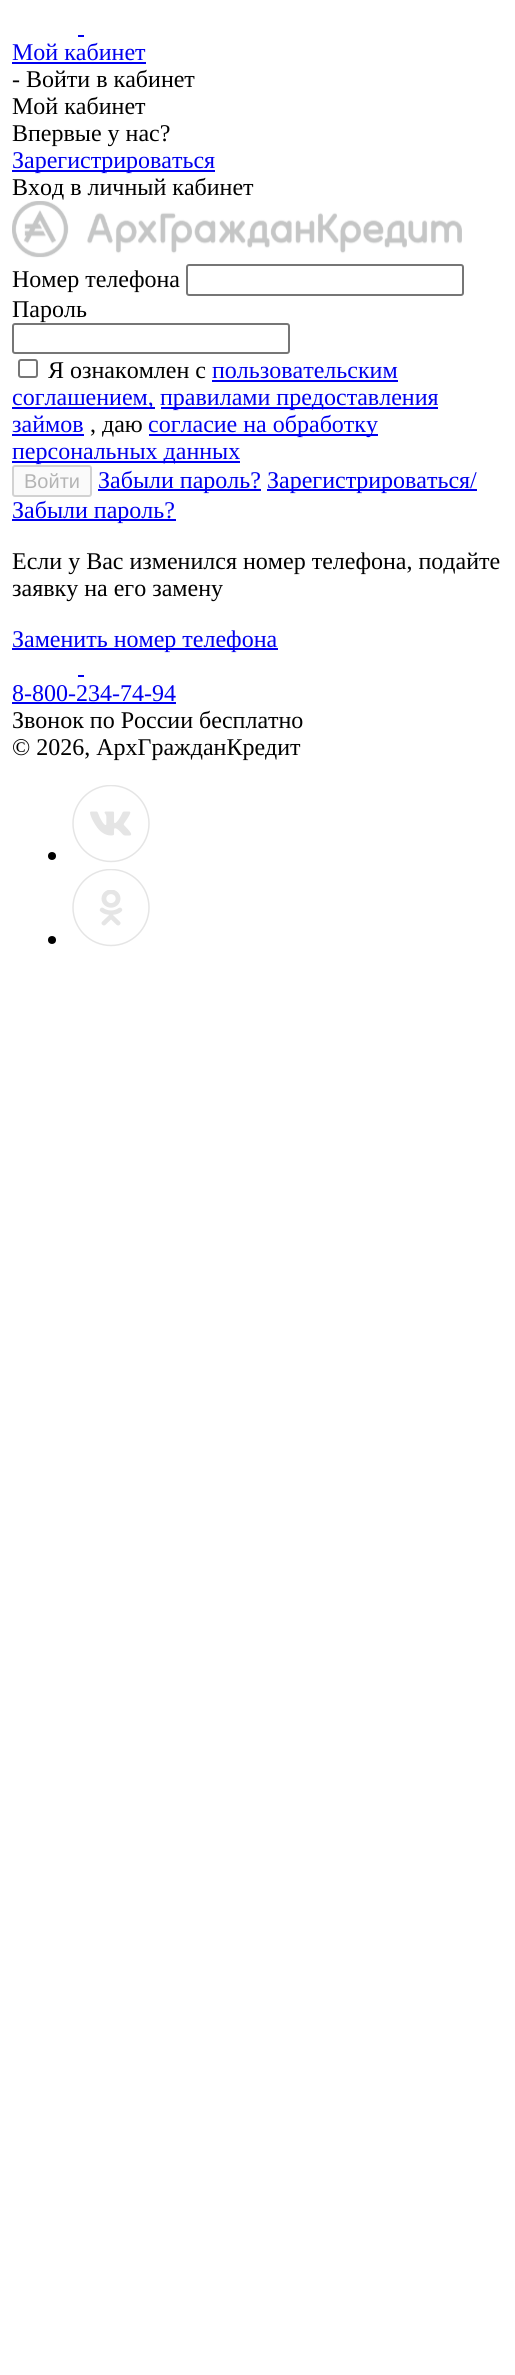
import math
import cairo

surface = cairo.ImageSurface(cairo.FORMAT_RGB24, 515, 2375)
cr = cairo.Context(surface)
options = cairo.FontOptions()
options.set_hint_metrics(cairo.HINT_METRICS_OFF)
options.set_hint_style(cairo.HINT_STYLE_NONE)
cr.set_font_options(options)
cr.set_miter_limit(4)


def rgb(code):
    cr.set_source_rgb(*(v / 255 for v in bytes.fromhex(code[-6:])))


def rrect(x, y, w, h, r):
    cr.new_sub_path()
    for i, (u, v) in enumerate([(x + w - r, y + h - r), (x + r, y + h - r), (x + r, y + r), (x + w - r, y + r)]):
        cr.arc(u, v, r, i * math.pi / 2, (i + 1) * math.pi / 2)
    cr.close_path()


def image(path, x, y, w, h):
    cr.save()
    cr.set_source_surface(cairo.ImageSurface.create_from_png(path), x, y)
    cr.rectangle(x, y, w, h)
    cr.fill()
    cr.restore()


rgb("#ffffff")
cr.paint()
for x, y, w, h, color in [
    (78, 35, 6, 2, "#0000ee"),
    (12, 62, 134, 2, "#0000ee"),
    (12, 170, 203, 2, "#0000ee"),
]:
    rgb(color)
    cr.rectangle(x, y, w, h)
    cr.fill()
image("img/1.png", 12, 201, 450, 57)
rrect(187, 265, 276, 30, 2)
rgb("#767676")
cr.stroke()
rrect(13, 324, 276, 29, 2)
cr.stroke()
rrect(19, 360, 18, 17, 2)
cr.stroke()
for x, y, w, h, color in [
    (212, 380, 186, 2, "#0000ee"),
    (12, 407, 143, 2, "#0000ee"),
    (161, 407, 277, 2, "#0000ee"),
    (12, 434, 72, 2, "#0000ee"),
    (149, 434, 229, 2, "#0000ee"),
    (12, 461, 228, 2, "#0000ee"),
]:
    rgb(color)
    cr.rectangle(x, y, w, h)
    cr.fill()
rgb("#fafafa")
rrect(13, 466, 78, 30, 2)
cr.fill_preserve()
rgb("#d2d2d2")
cr.stroke()
for x, y, w, h, color in [
    (98, 489, 163, 2, "#0000ee"),
    (267, 489, 210, 2, "#0000ee"),
    (12, 519, 164, 2, "#0000ee"),
    (12, 648, 266, 2, "#0000ee"),
    (78, 675, 6, 2, "#0000ee"),
    (12, 702, 164, 2, "#0000ee"),
]:
    rgb(color)
    cr.rectangle(x, y, w, h)
    cr.fill()
rgb("#000000")
cr.arc(52, 856, 4, 0, 2 * math.pi)
cr.fill()
image("img/2.png", 72, 785, 78, 78)
cr.arc(52, 940, 4, 0, 2 * math.pi)
cr.fill()
image("img/3.png", 72, 869, 78, 78)
cr.select_font_face("Liberation Serif")
cr.set_font_size(24)
rgb("#0000ee")
cr.move_to(12, 60)
cr.show_text("Мой кабинет")
rgb("#000000")
for x, y, s in [
    (12, 87, "- Войти в кабинет"),
    (12, 114, "Мой кабинет"),
    (12, 141, "Впервые у нас?"),
]:
    cr.move_to(x, y)
    cr.show_text(s)
rgb("#0000ee")
cr.move_to(12, 168)
cr.show_text("Зарегистрироваться")
rgb("#000000")
for x, y, s in [
    (12, 195, "Вход в личный кабинет"),
    (12, 287, "Номер телефона"),
    (12, 317, "Пароль"),
    (48, 378, "Я ознакомлен с"),
]:
    cr.move_to(x, y)
    cr.show_text(s)
rgb("#0000ee")
for x, y, s in [
    (212, 378, "пользовательским"),
    (12, 405, "соглашением,"),
    (160, 405, "правилами предоставления"),
    (12, 432, "займов"),
]:
    cr.move_to(x, y)
    cr.show_text(s)
rgb("#000000")
cr.move_to(90, 432)
cr.show_text(", даю")
rgb("#0000ee")
cr.move_to(148, 432)
cr.show_text("согласие на обработку")
cr.move_to(12, 459)
cr.show_text("персональных данных")
cr.select_font_face("Liberation Sans")
cr.set_font_size(20)
rgb("#b4b4b4")
cr.move_to(24, 488)
cr.show_text("Войти")
cr.select_font_face("Liberation Serif")
cr.set_font_size(24)
rgb("#0000ee")
for x, y, s in [
    (98, 488, "Забыли пароль?"),
    (267, 488, "Зарегистрироваться/"),
    (12, 518, "Забыли пароль?"),
]:
    cr.move_to(x, y)
    cr.show_text(s)
rgb("#000000")
cr.move_to(12, 569)
cr.show_text("Если у Вас изменился номер телефона, подайте")
cr.move_to(12, 596)
cr.show_text("заявку на его замену")
rgb("#0000ee")
cr.move_to(12, 647)
cr.show_text("Заменить номер телефона")
cr.move_to(12, 701)
cr.show_text("8-800-234-74-94")
rgb("#000000")
cr.move_to(12, 728)
cr.show_text("Звонок по России бесплатно")
cr.move_to(12, 755)
cr.show_text("© 2026, АрхГражданКредит")
surface.write_to_png("page.png")
